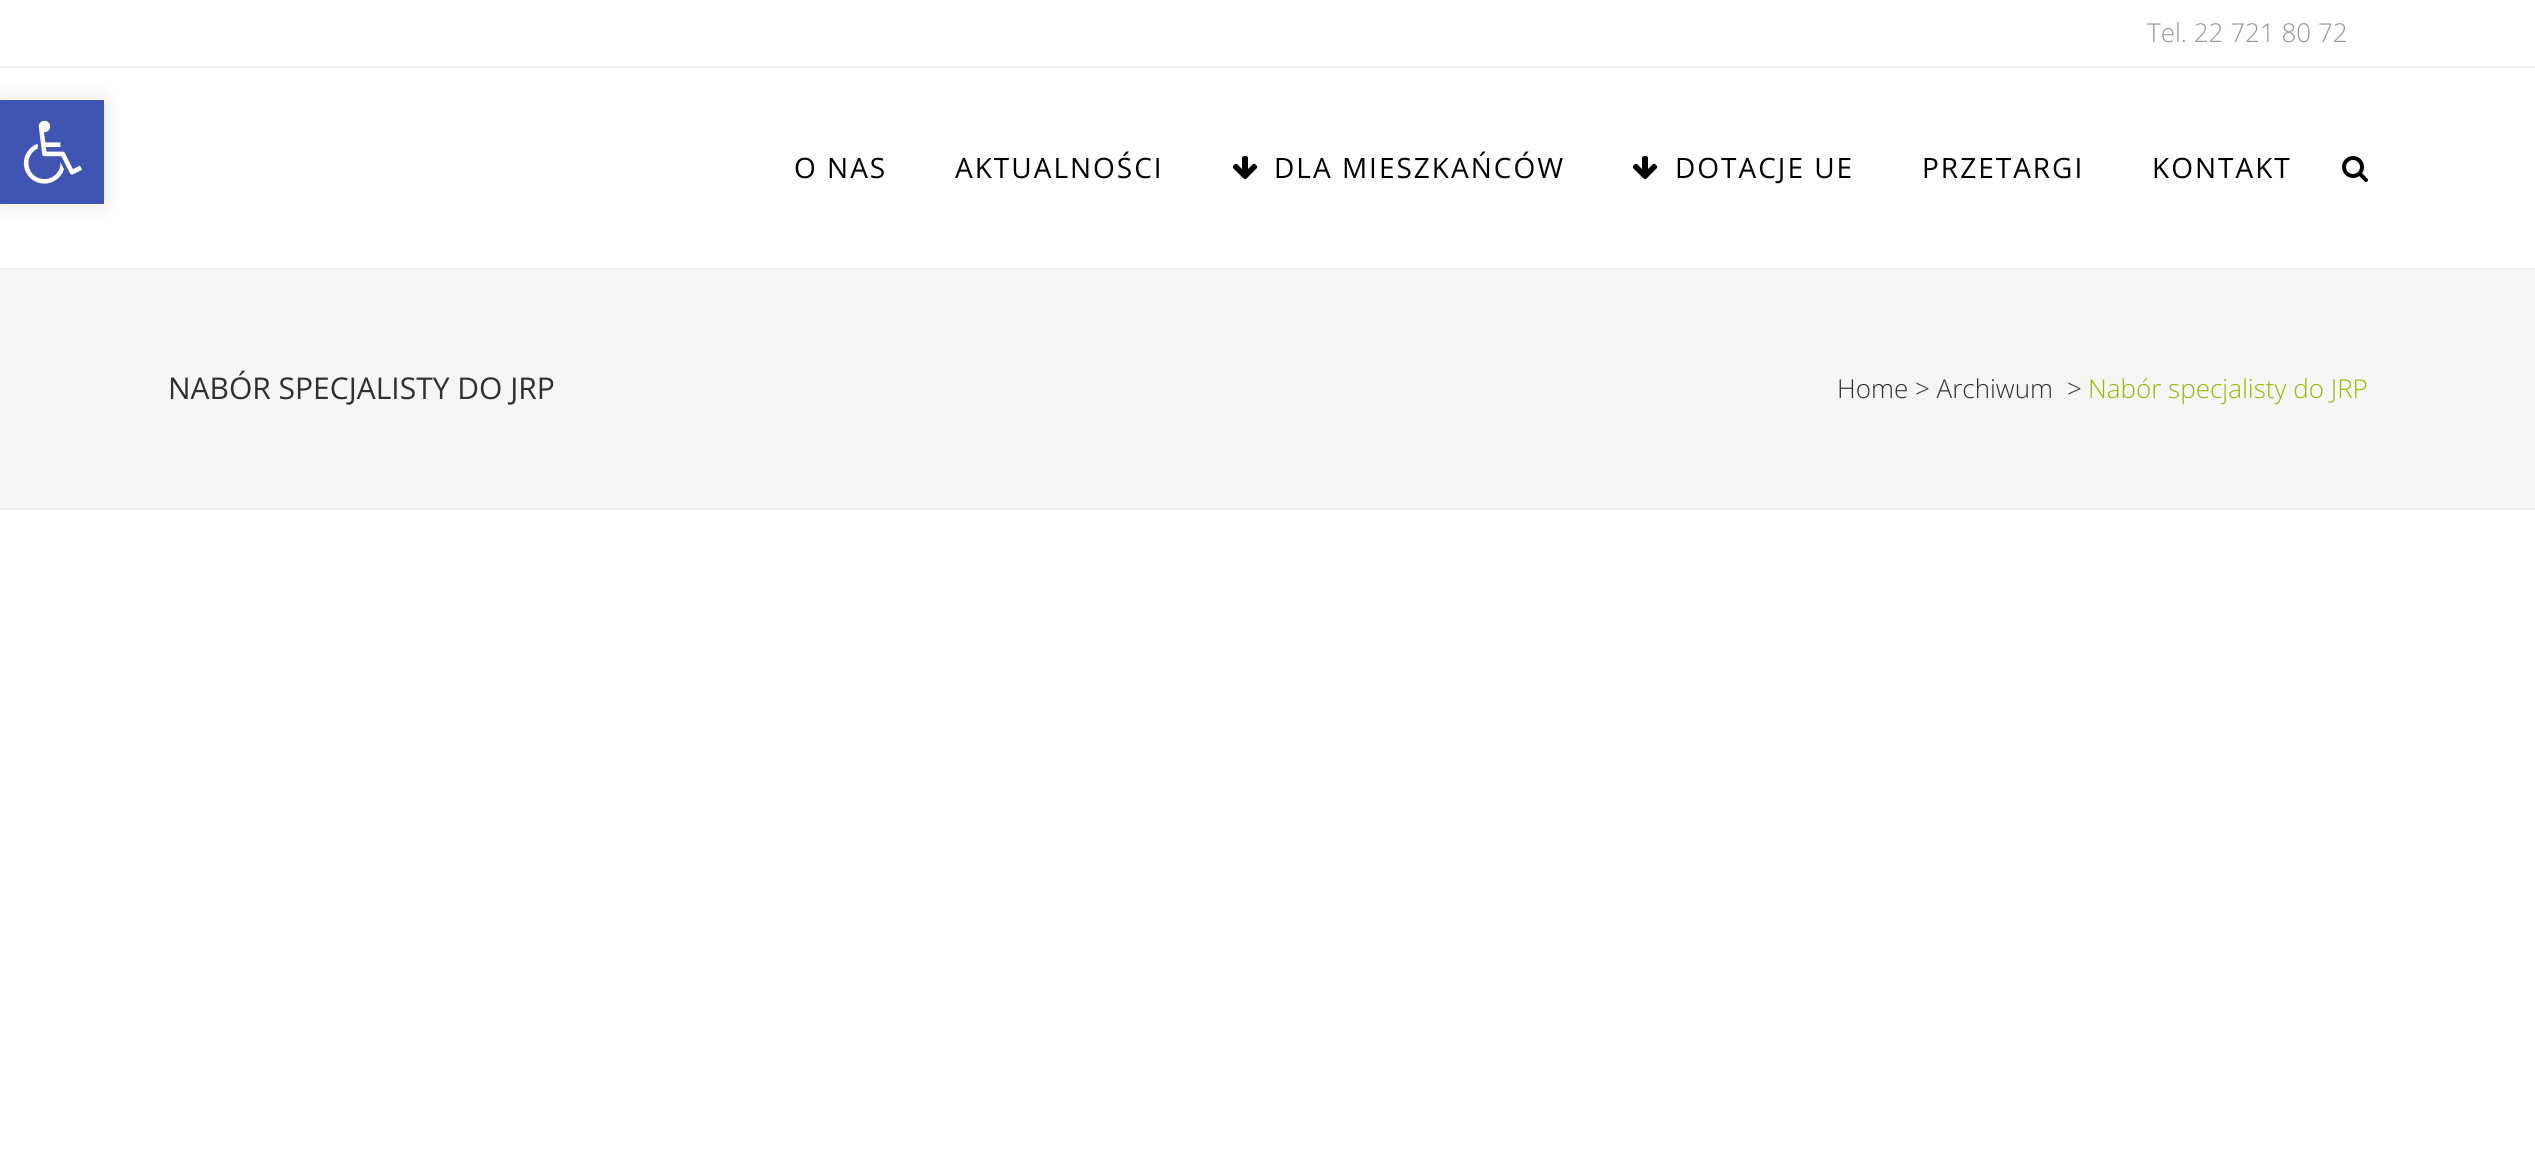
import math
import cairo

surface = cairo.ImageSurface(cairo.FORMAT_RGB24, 2535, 1155)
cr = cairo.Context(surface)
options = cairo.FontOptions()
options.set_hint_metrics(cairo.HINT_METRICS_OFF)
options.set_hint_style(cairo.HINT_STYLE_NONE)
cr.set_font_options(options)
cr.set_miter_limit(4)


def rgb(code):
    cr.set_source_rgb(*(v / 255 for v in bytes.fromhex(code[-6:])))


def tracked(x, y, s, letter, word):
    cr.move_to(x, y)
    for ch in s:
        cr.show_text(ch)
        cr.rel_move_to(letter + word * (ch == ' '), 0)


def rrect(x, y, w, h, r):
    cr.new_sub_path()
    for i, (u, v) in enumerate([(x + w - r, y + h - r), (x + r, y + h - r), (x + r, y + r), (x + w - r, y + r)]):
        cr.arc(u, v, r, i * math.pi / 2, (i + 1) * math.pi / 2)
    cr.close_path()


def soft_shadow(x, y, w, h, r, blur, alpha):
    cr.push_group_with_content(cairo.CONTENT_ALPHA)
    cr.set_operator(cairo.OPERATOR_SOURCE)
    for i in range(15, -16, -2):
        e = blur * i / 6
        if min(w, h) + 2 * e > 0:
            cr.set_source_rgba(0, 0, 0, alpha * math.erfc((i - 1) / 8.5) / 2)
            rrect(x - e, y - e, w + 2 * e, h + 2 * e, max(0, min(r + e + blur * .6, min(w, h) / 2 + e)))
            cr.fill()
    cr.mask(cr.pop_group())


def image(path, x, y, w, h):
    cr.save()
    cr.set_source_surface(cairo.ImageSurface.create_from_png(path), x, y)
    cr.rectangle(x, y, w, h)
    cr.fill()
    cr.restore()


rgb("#ffffff")
cr.paint()
rgb("#000000")
soft_shadow(0, 100, 104, 104, 0, 10, 0.1)
rgb("#4054b2")
cr.rectangle(0, 100, 104, 104)
cr.fill()
image("img/1.png", 23, 120, 59, 64)
rgb("#efefef")
cr.rectangle(0, 66, 2535, 2)
cr.fill()
cr.rectangle(0, 268, 2535, 2)
cr.fill()
image("img/2.png", 1232, 156, 26, 24)
image("img/2.png", 1632, 156, 26, 24)
image("img/3.png", 2342, 156, 26, 26)
rgb("#f6f6f6")
cr.rectangle(0, 270, 2535, 238)
cr.fill()
rgb("#efefef")
cr.rectangle(0, 508, 2535, 2)
cr.fill()
cr.select_font_face("Open Sans Light")
cr.set_font_size(26)
rgb("#969696")
cr.move_to(2147, 42)
cr.show_text("Tel. 22 721 80 72")
cr.select_font_face("Open Sans")
cr.set_font_size(28)
rgb("#000000")
for x, y, s in [
    (794, 178, "O NAS"),
    (955, 178, "AKTUALNOŚCI"),
    (1274, 178, "DLA MIESZKAŃCÓW"),
    (1675, 178, "DOTACJE UE"),
    (1922, 178, "PRZETARGI"),
    (2152, 178, "KONTAKT"),
]:
    tracked(x, y, s, 2, 0)
cr.set_font_size(30)
rgb("#303030")
cr.move_to(168, 399)
cr.show_text("NABÓR SPECJALISTY DO JRP")
cr.select_font_face("Open Sans Light")
cr.set_font_size(26)
cr.move_to(1837, 398)
cr.show_text("Home > Archiwum")
cr.move_to(2067, 398)
cr.show_text(">")
rgb("#95ba00")
cr.move_to(2088, 398)
cr.show_text("Nabór specjalisty do JRP")
surface.write_to_png("page.png")
